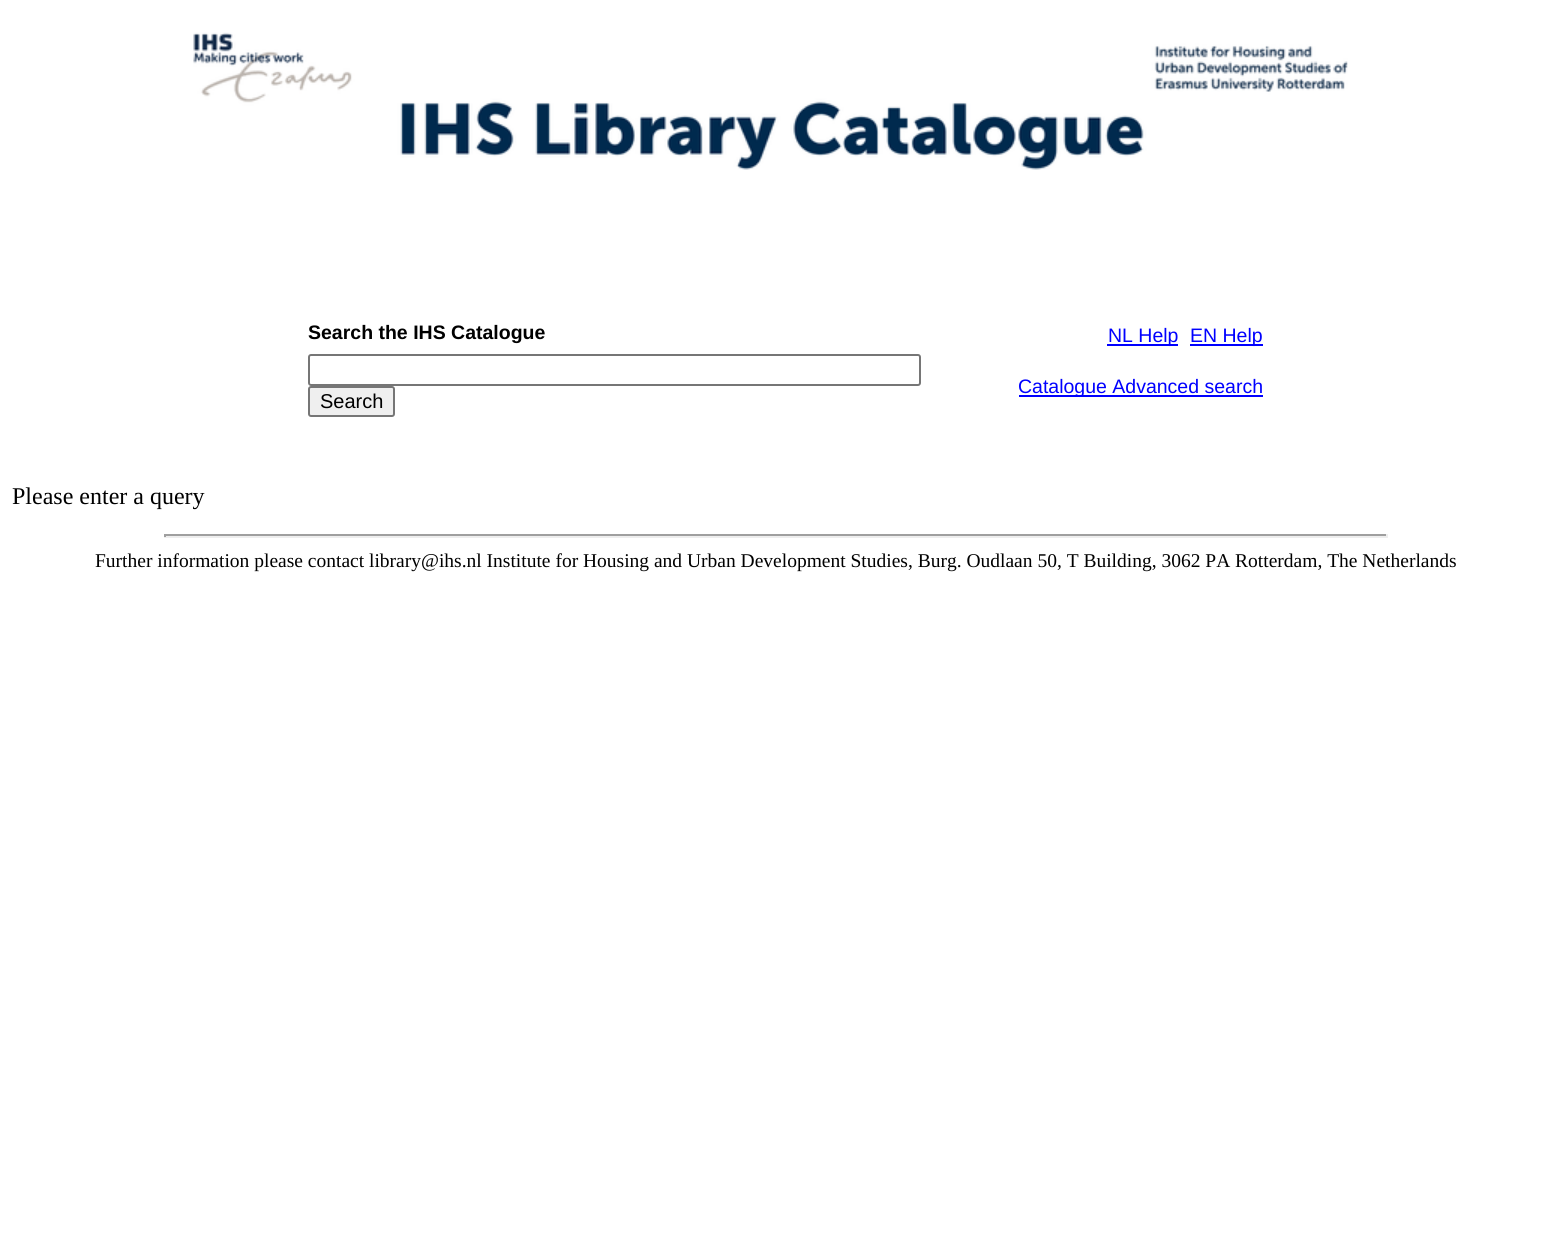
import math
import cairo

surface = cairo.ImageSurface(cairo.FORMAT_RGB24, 1551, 1242)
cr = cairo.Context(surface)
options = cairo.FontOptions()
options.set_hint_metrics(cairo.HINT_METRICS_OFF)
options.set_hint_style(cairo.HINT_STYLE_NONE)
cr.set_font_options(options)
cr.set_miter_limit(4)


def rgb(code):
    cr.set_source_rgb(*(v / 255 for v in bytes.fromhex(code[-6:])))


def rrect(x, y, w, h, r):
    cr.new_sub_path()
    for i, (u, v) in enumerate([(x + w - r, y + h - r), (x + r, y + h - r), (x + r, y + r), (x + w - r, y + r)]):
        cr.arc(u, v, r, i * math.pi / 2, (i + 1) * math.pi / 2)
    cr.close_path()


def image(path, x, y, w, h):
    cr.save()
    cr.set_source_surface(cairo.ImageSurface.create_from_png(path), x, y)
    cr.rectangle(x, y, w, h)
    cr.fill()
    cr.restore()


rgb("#ffffff")
cr.paint()
image("img/1.png", 193, 32, 1155, 138)
for x, y, w, h, color in [
    (1107, 344, 71, 2, "#0000ff"),
    (1190, 344, 73, 2, "#0000ff"),
    (1019, 395, 244, 2, "#0000ff"),
]:
    rgb(color)
    cr.rectangle(x, y, w, h)
    cr.fill()
rrect(309, 355, 611, 30, 2)
rgb("#767676")
cr.stroke()
rgb("#efefef")
rrect(309, 387, 85, 29, 2)
cr.fill_preserve()
rgb("#767676")
cr.stroke()
for x, y, w, h, color in [
    (164, 534, 1224, 2, "#9f9f9f"),
    (1386, 534, 2, 3, "#eeeeee"),
    (164, 536, 1224, 2, "#eeeeee"),
    (164, 534, 2, 3, "#9f9f9f"),
]:
    rgb(color)
    cr.rectangle(x, y, w, h)
    cr.fill()
cr.select_font_face("Liberation Sans", cairo.FONT_SLANT_NORMAL, cairo.FONT_WEIGHT_BOLD)
cr.set_font_size(19.5)
rgb("#000000")
cr.move_to(308, 339)
cr.show_text("Search the IHS Catalogue")
cr.select_font_face("Liberation Sans")
rgb("#0000ff")
for x, y, s in [
    (1108, 342, "NL Help"),
    (1190, 342, "EN Help"),
    (1018, 393, "Catalogue Advanced search"),
]:
    cr.move_to(x, y)
    cr.show_text(s)
cr.set_font_size(20)
rgb("#000000")
cr.move_to(320, 408)
cr.show_text("Search")
cr.select_font_face("Liberation Serif")
cr.set_font_size(24)
cr.move_to(12, 504)
cr.show_text("Please enter a query")
cr.set_font_size(19.5)
cr.move_to(95, 567)
cr.show_text("Further information please contact library@ihs.nl Institute for Housing and Urban Development Studies, Burg. Oudlaan 50, T Building, 3062 PA Rotterdam, The Netherlands")
surface.write_to_png("page.png")
